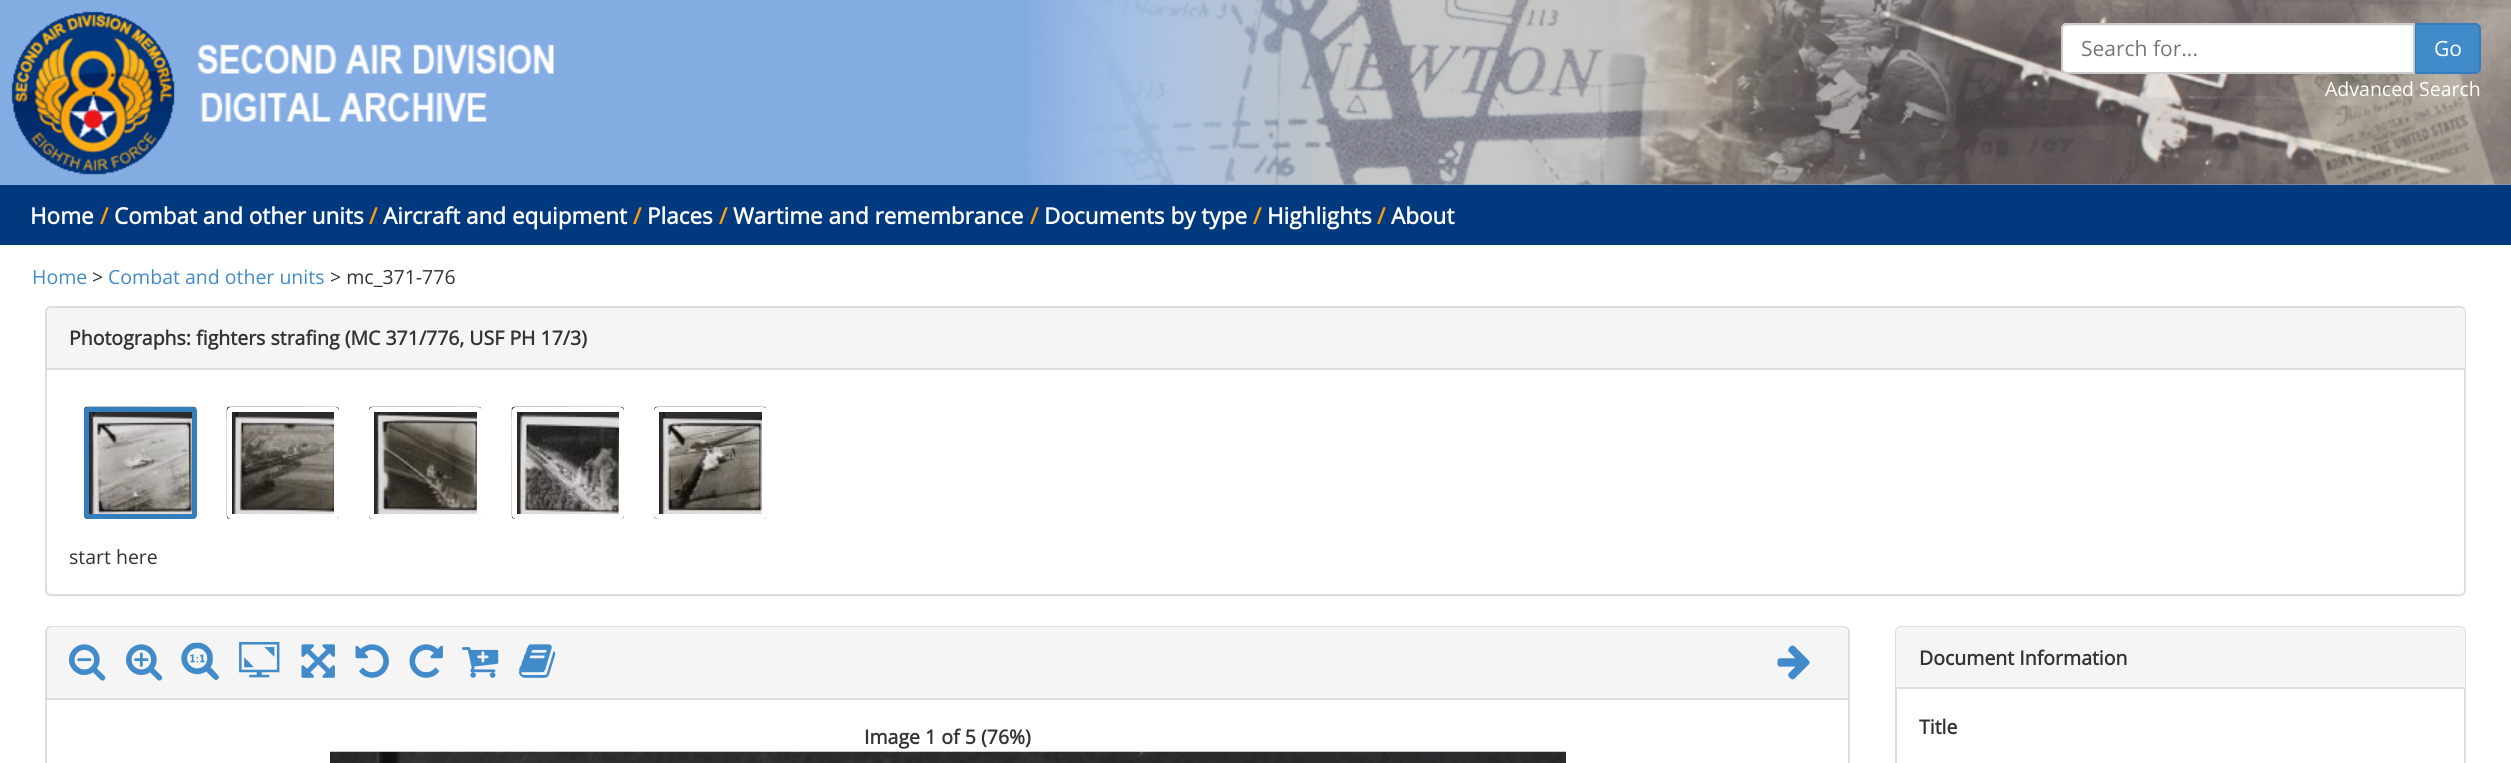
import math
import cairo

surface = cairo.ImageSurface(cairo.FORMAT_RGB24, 2511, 763)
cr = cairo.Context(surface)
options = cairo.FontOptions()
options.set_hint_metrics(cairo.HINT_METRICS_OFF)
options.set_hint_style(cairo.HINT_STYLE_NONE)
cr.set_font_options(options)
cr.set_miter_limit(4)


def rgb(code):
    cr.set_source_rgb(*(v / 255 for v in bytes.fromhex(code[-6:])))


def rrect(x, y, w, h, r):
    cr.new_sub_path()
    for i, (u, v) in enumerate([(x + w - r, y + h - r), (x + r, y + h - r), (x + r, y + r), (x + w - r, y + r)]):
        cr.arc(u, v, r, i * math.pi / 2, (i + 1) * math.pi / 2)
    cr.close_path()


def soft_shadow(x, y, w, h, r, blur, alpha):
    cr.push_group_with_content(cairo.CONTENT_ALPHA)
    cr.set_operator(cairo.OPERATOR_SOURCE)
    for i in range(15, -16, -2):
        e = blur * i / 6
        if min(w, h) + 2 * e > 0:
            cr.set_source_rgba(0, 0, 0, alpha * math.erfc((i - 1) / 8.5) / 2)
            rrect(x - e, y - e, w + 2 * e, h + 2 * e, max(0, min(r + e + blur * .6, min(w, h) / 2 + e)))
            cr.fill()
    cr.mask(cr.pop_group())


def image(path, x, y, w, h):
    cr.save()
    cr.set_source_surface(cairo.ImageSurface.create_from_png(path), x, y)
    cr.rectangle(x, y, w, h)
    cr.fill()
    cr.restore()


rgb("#ffffff")
cr.paint()
rgb("#83ace2")
cr.rectangle(0, 0, 2511, 185)
cr.fill()
image("img/1.png", 1028, 0, 1483, 185)
image("img/2.png", 11, 11, 164, 164)
image("img/3.png", 197, 44, 357, 78)
rgb("#428bca")
cr.new_path()
cr.move_to(2415, 24)
cr.line_to(2475, 24)
cr.curve_to(2478, 24, 2480, 26, 2480, 29)
cr.line_to(2480, 68)
cr.curve_to(2480, 71, 2478, 73, 2475, 73)
cr.line_to(2415, 73)
cr.close_path()
cr.fill_preserve()
rgb("#357ebd")
cr.stroke()
rgb("#ffffff")
cr.new_path()
cr.move_to(2067, 23)
cr.line_to(2415, 23)
cr.line_to(2415, 74)
cr.line_to(2067, 74)
cr.curve_to(2063.5, 74, 2061, 71.5, 2061, 68)
cr.line_to(2061, 29)
cr.curve_to(2061, 25.5, 2063.5, 23, 2067, 23)
cr.close_path()
cr.fill()
rgb("#ececec")
cr.new_path()
cr.move_to(2067, 26)
cr.line_to(2414, 26)
cr.line_to(2414, 24)
cr.line_to(2068, 24)
cr.curve_to(2066, 24, 2064, 26, 2063, 28)
cr.curve_to(2064, 27, 2066, 26, 2067, 26)
cr.close_path()
cr.fill()
cr.new_path()
cr.move_to(2067, 24)
cr.line_to(2414, 24)
cr.line_to(2414, 73)
cr.line_to(2067, 73)
cr.curve_to(2064, 73, 2062, 71, 2062, 68)
cr.line_to(2062, 29)
cr.curve_to(2062, 26, 2064, 24, 2067, 24)
cr.close_path()
rgb("#cccccc")
cr.stroke()
rgb("#01397f")
cr.rectangle(0, 185, 2511, 60)
cr.fill()
rgb("#000000")
soft_shadow(45, 308, 2421, 289, 6, 1, 0.05)
rgb("#ffffff")
rrect(46, 307, 2419, 288, 5)
cr.fill_preserve()
rgb("#dddddd")
cr.stroke()
rgb("#f5f5f5")
cr.new_path()
cr.move_to(52, 308)
cr.line_to(2460, 308)
cr.curve_to(2463, 308, 2465, 310, 2465, 313)
cr.line_to(2465, 369)
cr.line_to(47, 369)
cr.line_to(47, 313)
cr.curve_to(47, 310, 49, 308, 52, 308)
cr.close_path()
cr.fill()
rgb("#dddddd")
cr.rectangle(47, 368, 2418, 2)
cr.fill()
image("img/4.png", 84, 406, 113, 113)
rrect(86.5, 409.5, 108, 107, 1.5)
rgb("#357ebd")
cr.set_line_width(5)
cr.stroke()
image("img/5.png", 226, 406, 113, 113)
rrect(229.5, 409.5, 107, 107, 1.5)
rgb("#ffffff")
cr.stroke()
image("img/6.png", 369, 406, 113, 113)
rrect(371.5, 409.5, 108, 107, 1.5)
cr.stroke()
image("img/7.png", 511, 406, 113, 113)
rrect(514.5, 409.5, 107, 107, 1.5)
cr.stroke()
image("img/8.png", 654, 406, 113, 113)
rrect(656.5, 409.5, 108, 107, 1.5)
cr.stroke()
rrect(1896, 627, 569, 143, 5)
rgb("#dddddd")
cr.set_line_width(2)
cr.stroke()
rgb("#f5f5f5")
cr.new_path()
cr.move_to(1901, 627)
cr.line_to(2460, 627)
cr.curve_to(2463, 627, 2465, 629, 2465, 632)
cr.line_to(2465, 689)
cr.line_to(1896, 689)
cr.line_to(1896, 632)
cr.curve_to(1896, 629, 1898, 627, 1901, 627)
cr.close_path()
cr.fill()
rgb("#dddddd")
cr.rectangle(1896, 687, 569, 2)
cr.fill()
rrect(46, 627, 1803, 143, 5)
cr.stroke()
rgb("#f5f5f5")
cr.new_path()
cr.move_to(52, 627)
cr.line_to(1843, 627)
cr.curve_to(1846, 627, 1848, 629, 1848, 632)
cr.line_to(1848, 699)
cr.line_to(47, 699)
cr.line_to(47, 632)
cr.curve_to(47, 629, 49, 627, 52, 627)
cr.close_path()
cr.fill()
rgb("#dddddd")
cr.rectangle(47, 698, 1801, 2)
cr.fill()
image("img/9.png", 69, 644, 37, 37)
image("img/10.png", 126, 644, 37, 37)
image("img/11.png", 181, 642, 38, 39)
image("img/12.png", 239, 642, 41, 36)
image("img/13.png", 301, 644, 34, 34)
image("img/14.png", 355, 644, 34, 34)
image("img/15.png", 409, 644, 34, 34)
image("img/16.png", 462, 647, 37, 31)
image("img/17.png", 519, 644, 37, 34)
image("img/18.png", 1777, 645, 33, 35)
image("img/19.png", 330, 751, 1236, 12)
cr.select_font_face("Open Sans")
cr.set_font_size(21)
rgb("#777777")
cr.move_to(2081, 56)
cr.show_text("Search for...")
rgb("#ffffff")
cr.move_to(2434, 56)
cr.show_text("Go")
cr.set_font_size(19.5)
cr.move_to(2325, 96)
cr.show_text("Advanced Search")
cr.select_font_face("Open Sans", cairo.FONT_SLANT_NORMAL, cairo.FONT_WEIGHT_BOLD)
cr.set_font_size(22.5)
cr.move_to(30, 224)
cr.show_text("Home")
rgb("#fc9e0e")
cr.move_to(100, 224)
cr.show_text("/")
rgb("#ffffff")
cr.move_to(114, 224)
cr.show_text("Combat and other units")
rgb("#fc9e0e")
cr.move_to(369, 224)
cr.show_text("/")
rgb("#ffffff")
cr.move_to(383, 224)
cr.show_text("Aircraft and equipment")
rgb("#fc9e0e")
cr.move_to(633, 224)
cr.show_text("/")
rgb("#ffffff")
cr.move_to(647, 224)
cr.show_text("Places")
rgb("#fc9e0e")
cr.move_to(719, 224)
cr.show_text("/")
rgb("#ffffff")
cr.move_to(733, 224)
cr.show_text("Wartime and remembrance")
rgb("#fc9e0e")
cr.move_to(1030, 224)
cr.show_text("/")
rgb("#ffffff")
cr.move_to(1044, 224)
cr.show_text("Documents by type")
rgb("#fc9e0e")
cr.move_to(1253, 224)
cr.show_text("/")
rgb("#ffffff")
cr.move_to(1267, 224)
cr.show_text("Highlights")
rgb("#fc9e0e")
cr.move_to(1377, 224)
cr.show_text("/")
rgb("#ffffff")
cr.move_to(1391, 224)
cr.show_text("About")
cr.select_font_face("Open Sans")
cr.set_font_size(19.5)
rgb("#428bca")
cr.move_to(32, 284)
cr.show_text("Home")
rgb("#333333")
cr.move_to(92, 284)
cr.show_text(">")
rgb("#428bca")
cr.move_to(108, 284)
cr.show_text("Combat and other units")
rgb("#333333")
cr.move_to(330, 284)
cr.show_text("> mc_371-776")
cr.select_font_face("Open Sans", cairo.FONT_SLANT_NORMAL, cairo.FONT_WEIGHT_BOLD)
cr.move_to(69, 345)
cr.show_text("Photographs: fighters strafing (MC 371/776, USF PH 17/3)")
cr.select_font_face("Open Sans")
cr.move_to(69, 564)
cr.show_text("start here")
cr.select_font_face("Open Sans", cairo.FONT_SLANT_NORMAL, cairo.FONT_WEIGHT_BOLD)
for x, y, s in [
    (1919, 665, "Document Information"),
    (1919, 734, "Title"),
    (864, 744, "Image 1 of 5 (76%)"),
]:
    cr.move_to(x, y)
    cr.show_text(s)
surface.write_to_png("page.png")
